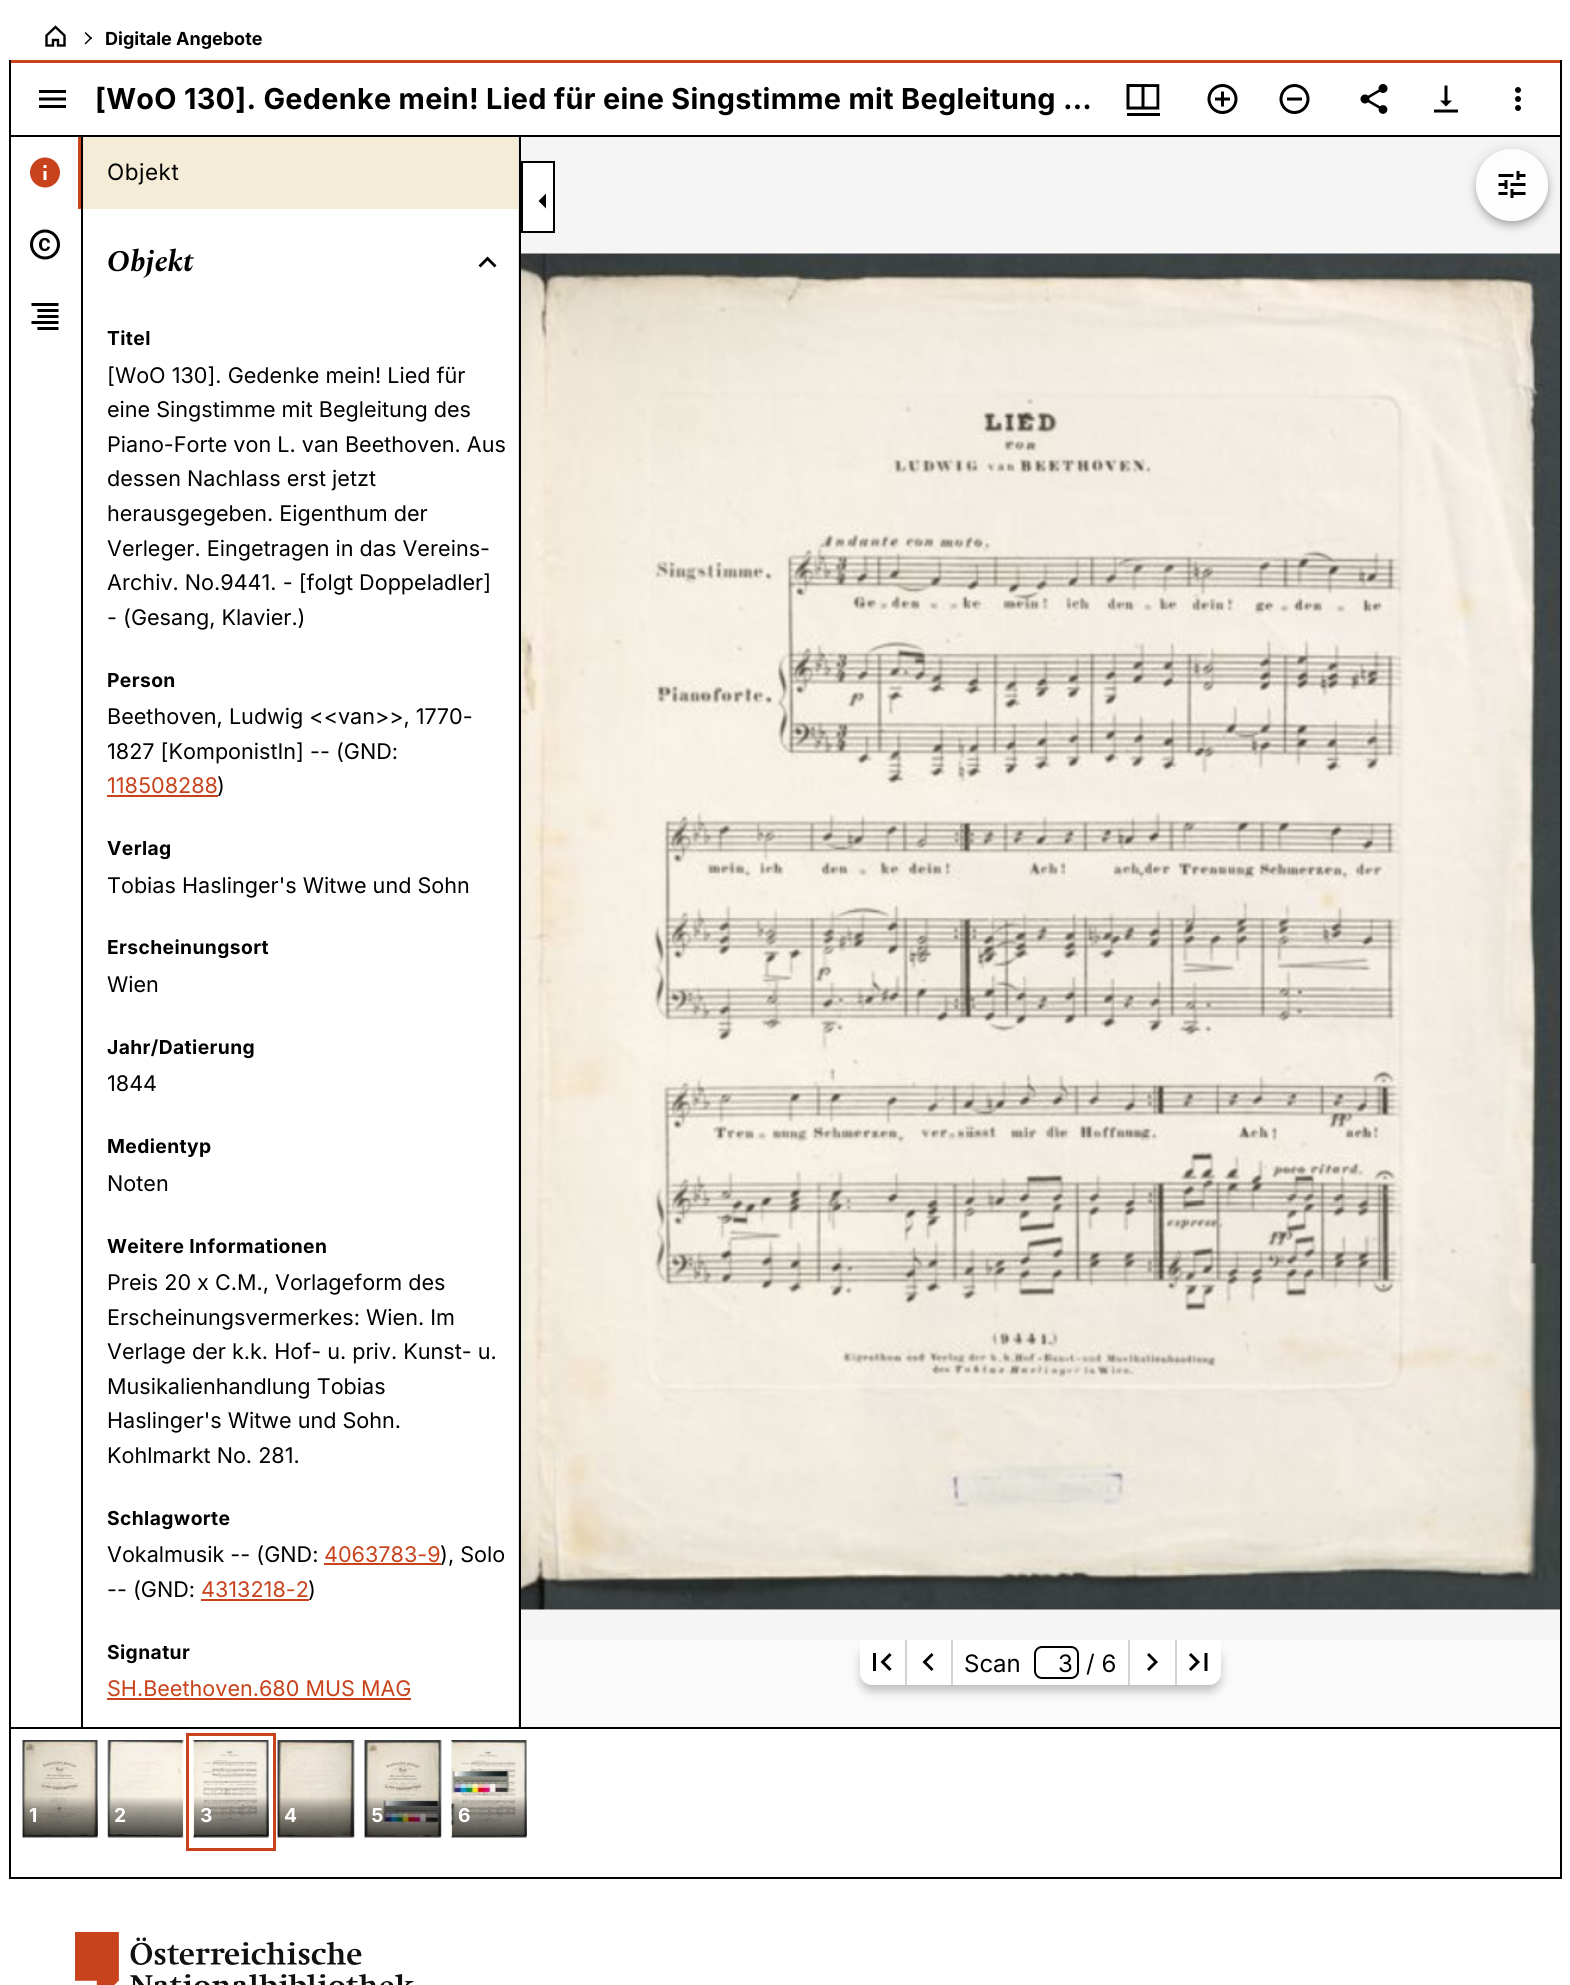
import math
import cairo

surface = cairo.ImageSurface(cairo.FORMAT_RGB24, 1570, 1985)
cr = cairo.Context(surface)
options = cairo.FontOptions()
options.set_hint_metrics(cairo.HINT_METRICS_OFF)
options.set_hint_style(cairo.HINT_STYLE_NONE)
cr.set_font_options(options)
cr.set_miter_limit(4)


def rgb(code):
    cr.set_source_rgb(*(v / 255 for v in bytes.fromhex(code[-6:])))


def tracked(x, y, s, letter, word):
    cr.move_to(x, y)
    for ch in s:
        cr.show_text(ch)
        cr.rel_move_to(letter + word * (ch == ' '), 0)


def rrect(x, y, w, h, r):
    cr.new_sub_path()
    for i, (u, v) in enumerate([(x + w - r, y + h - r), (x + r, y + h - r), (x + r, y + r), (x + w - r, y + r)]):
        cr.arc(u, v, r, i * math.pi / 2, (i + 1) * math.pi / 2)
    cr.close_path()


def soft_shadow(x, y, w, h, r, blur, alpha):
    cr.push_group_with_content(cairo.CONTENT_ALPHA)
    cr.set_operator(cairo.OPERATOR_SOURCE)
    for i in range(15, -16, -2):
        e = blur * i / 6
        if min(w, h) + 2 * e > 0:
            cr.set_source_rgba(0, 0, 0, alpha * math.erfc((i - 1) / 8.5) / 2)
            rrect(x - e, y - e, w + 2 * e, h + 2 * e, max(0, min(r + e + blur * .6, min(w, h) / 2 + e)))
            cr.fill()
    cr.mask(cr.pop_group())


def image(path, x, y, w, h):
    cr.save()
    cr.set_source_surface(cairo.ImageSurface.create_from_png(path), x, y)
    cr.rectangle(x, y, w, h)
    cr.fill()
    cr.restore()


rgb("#ffffff")
cr.paint()
cr.new_path()
cr.move_to(64.5, 35.5)
cr.line_to(64.5, 45.5)
cr.line_to(58, 45.5)
cr.line_to(58, 40)
cr.line_to(53, 40)
cr.line_to(53, 45.5)
cr.line_to(46.5, 45.5)
cr.line_to(46.5, 35.5)
cr.line_to(55.5, 27)
cr.close_path()
rgb("#000000")
cr.set_line_width(2.4)
cr.stroke()
cr.new_path()
cr.move_to(85.5, 32)
cr.line_to(92, 38)
cr.line_to(91, 39.5)
cr.line_to(84.5, 33)
cr.close_path()
cr.fill()
cr.new_path()
cr.move_to(91, 37)
cr.line_to(92, 38)
cr.line_to(85.5, 44.5)
cr.line_to(84.5, 43.5)
cr.close_path()
cr.fill()
for x, y, w, h, color in [
    (1560, 60, 2, 1818, "#000000"),
    (9, 1877, 1553, 2, "#000000"),
    (9, 60, 2, 1818, "#000000"),
    (521, 137, 1039, 1503, "#f5f5f5"),
]:
    rgb(color)
    cr.rectangle(x, y, w, h)
    cr.fill()
cr.save()
cr.set_fill_rule(cairo.FILL_RULE_EVEN_ODD)
cr.new_path()
cr.move_to(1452, 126)
cr.line_to(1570, 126)
cr.line_to(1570, 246)
cr.line_to(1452, 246)
cr.close_path()
cr.move_to(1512, 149)
cr.curve_to(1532, 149, 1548, 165, 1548, 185)
cr.curve_to(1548, 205, 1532, 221, 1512, 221)
cr.curve_to(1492, 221, 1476, 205, 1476, 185)
cr.curve_to(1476, 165, 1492, 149, 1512, 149)
cr.close_path()
cr.clip()
rgb("#000000")
soft_shadow(1476, 150, 72, 72, 36, 7.5, 0.12)
cr.restore()
rgb("#000000")
cr.rectangle(11, 135, 1549, 2)
cr.fill()
rgb("#c8421c")
cr.rectangle(11, 60, 1549, 3)
cr.fill()
image("img/1.png", 39, 90, 27, 18)
image("img/2.png", 1126, 84, 34, 32)
image("img/3.png", 1207, 84, 31, 30)
image("img/4.png", 1279, 84, 31, 30)
image("img/5.png", 1360, 84, 28, 30)
image("img/6.png", 1434, 85, 24, 28)
image("img/7.png", 1515, 87, 6, 24)
rgb("#000000")
cr.rectangle(81, 137, 2, 1590)
cr.fill()
rgb("#c8421c")
cr.rectangle(78, 137, 3, 72)
cr.fill()
image("img/8.png", 30, 157, 30, 31)
image("img/9.png", 30, 229, 30, 31)
image("img/10.png", 31, 303, 28, 27)
rgb("#000000")
cr.rectangle(519, 137, 2, 1590)
cr.fill()
cr.set_source_rgba(0, 0, 0, 0.12)
cr.rectangle(518, 137, 1, 1590)
cr.fill()
rgb("#f5ecd8")
cr.rectangle(83, 137, 435, 72)
cr.fill()
rgb("#000000")
cr.new_path()
cr.move_to(480.5, 267.5)
cr.line_to(487.5, 260.5)
cr.line_to(494.5, 267.5)
cr.line_to(496.5, 265.5)
cr.line_to(487.5, 256.5)
cr.line_to(478.5, 265.5)
cr.close_path()
cr.fill()
for x, y, w, h, color in [
    (107, 795, 111, 2, "#c8421c"),
    (324, 1563, 117, 2, "#c8421c"),
    (201, 1599, 108, 2, "#c8421c"),
    (107, 1698, 304, 2, "#c8421c"),
]:
    rgb(color)
    cr.rectangle(x, y, w, h)
    cr.fill()
rgb("#ffffff")
cr.rectangle(522, 162, 32, 70)
cr.fill_preserve()
rgb("#000000")
cr.set_line_width(2)
cr.stroke()
cr.new_path()
cr.move_to(546, 193.5)
cr.line_to(538.5, 201)
cr.line_to(546, 208.5)
cr.close_path()
cr.fill()
cr.save()
cr.set_fill_rule(cairo.FILL_RULE_EVEN_ODD)
cr.new_path()
cr.move_to(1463, 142)
cr.line_to(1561, 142)
cr.line_to(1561, 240)
cr.line_to(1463, 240)
cr.close_path()
cr.move_to(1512, 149)
cr.curve_to(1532, 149, 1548, 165, 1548, 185)
cr.curve_to(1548, 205, 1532, 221, 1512, 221)
cr.curve_to(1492, 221, 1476, 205, 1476, 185)
cr.curve_to(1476, 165, 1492, 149, 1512, 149)
cr.close_path()
cr.clip()
rgb("#000000")
soft_shadow(1476, 155, 72, 72, 36, 4, 0.14)
cr.restore()
cr.save()
cr.set_fill_rule(cairo.FILL_RULE_EVEN_ODD)
cr.new_path()
cr.move_to(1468, 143)
cr.line_to(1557, 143)
cr.line_to(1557, 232)
cr.line_to(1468, 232)
cr.close_path()
cr.move_to(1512, 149)
cr.curve_to(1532, 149, 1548, 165, 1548, 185)
cr.curve_to(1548, 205, 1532, 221, 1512, 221)
cr.curve_to(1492, 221, 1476, 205, 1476, 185)
cr.curve_to(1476, 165, 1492, 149, 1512, 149)
cr.close_path()
cr.clip()
rgb("#000000")
soft_shadow(1478, 153, 69, 69, 34.5, 3, 0.2)
cr.restore()
cr.set_source_rgba(1, 1, 1, 0.8)
cr.arc(1512, 185, 36, 0, 2 * math.pi)
cr.fill()
image("img/11.png", 1498, 171, 28, 27)
image("img/12.png", 521, 253, 1039, 1357)
rgb("#fafafa")
cr.rectangle(521, 1640, 1039, 87)
cr.fill()
rgb("#000000")
soft_shadow(861, 1649, 359, 42, 11, 5, 0.25)
rgb("#ffffff")
cr.new_path()
cr.move_to(860, 1640)
cr.line_to(1221, 1640)
cr.line_to(1221, 1673)
cr.curve_to(1221, 1679.5, 1215.5, 1685, 1209, 1685)
cr.line_to(872, 1685)
cr.curve_to(865.5, 1685, 860, 1679.5, 860, 1673)
cr.close_path()
cr.fill()
image("img/13.png", 873, 1653, 19, 18)
rgb("#d3d3d3")
cr.rectangle(951, 1640, 2, 45)
cr.fill()
cr.rectangle(905, 1640, 2, 45)
cr.fill()
rgb("#000000")
cr.new_path()
cr.move_to(933.5, 1655)
cr.line_to(931.5, 1653)
cr.line_to(922.5, 1662)
cr.line_to(931.5, 1671)
cr.line_to(933.5, 1669)
cr.line_to(926.5, 1662)
cr.close_path()
cr.fill()
rrect(1035, 1647, 43, 31, 7)
cr.stroke()
rgb("#d3d3d3")
cr.rectangle(1175, 1640, 2, 45)
cr.fill()
cr.rectangle(1128, 1640, 2, 45)
cr.fill()
rgb("#000000")
cr.new_path()
cr.move_to(1149, 1653)
cr.line_to(1147, 1655)
cr.line_to(1154, 1662)
cr.line_to(1147, 1669)
cr.line_to(1149, 1671)
cr.line_to(1158, 1662)
cr.close_path()
cr.fill()
image("img/14.png", 1189, 1653, 19, 18)
cr.rectangle(11, 1727, 1549, 2)
cr.fill()
image("img/15.png", 22, 1740, 76, 98)
gradient = cairo.LinearGradient(60, 1836, 60, 1796)
gradient.add_color_stop_rgba(0, 0, 0, 0, 0.7)
gradient.add_color_stop_rgba(0.7, 0, 0, 0, 0.3)
gradient.add_color_stop_rgba(1, 0, 0, 0, 0)
cr.set_source(gradient)
cr.rectangle(23, 1797, 75, 39)
cr.fill()
image("img/16.png", 107, 1740, 77, 98)
gradient = cairo.LinearGradient(146, 1836, 146, 1796)
gradient.add_color_stop_rgba(0, 0, 0, 0, 0.7)
gradient.add_color_stop_rgba(0.7, 0, 0, 0, 0.3)
gradient.add_color_stop_rgba(1, 0, 0, 0, 0)
cr.set_source(gradient)
cr.rectangle(108, 1797, 75, 39)
cr.fill()
cr.rectangle(187.5, 1734.5, 87, 115)
rgb("#c8421c")
cr.set_line_width(3)
cr.stroke()
image("img/17.png", 193, 1740, 76, 98)
gradient = cairo.LinearGradient(231, 1836, 231, 1796)
gradient.add_color_stop_rgba(0, 0, 0, 0, 0.7)
gradient.add_color_stop_rgba(0.7, 0, 0, 0, 0.3)
gradient.add_color_stop_rgba(1, 0, 0, 0, 0)
cr.set_source(gradient)
cr.rectangle(194, 1797, 75, 39)
cr.fill()
image("img/18.png", 277, 1740, 78, 98)
gradient = cairo.LinearGradient(316, 1836, 316, 1796)
gradient.add_color_stop_rgba(0, 0, 0, 0, 0.7)
gradient.add_color_stop_rgba(0.7, 0, 0, 0, 0.3)
gradient.add_color_stop_rgba(1, 0, 0, 0, 0)
cr.set_source(gradient)
cr.rectangle(278, 1797, 76, 39)
cr.fill()
image("img/19.png", 364, 1740, 78, 98)
gradient = cairo.LinearGradient(403, 1836, 403, 1796)
gradient.add_color_stop_rgba(0, 0, 0, 0, 0.7)
gradient.add_color_stop_rgba(0.7, 0, 0, 0, 0.3)
gradient.add_color_stop_rgba(1, 0, 0, 0, 0)
cr.set_source(gradient)
cr.rectangle(365, 1797, 76, 39)
cr.fill()
image("img/20.png", 451, 1740, 76, 98)
gradient = cairo.LinearGradient(489, 1836, 489, 1796)
gradient.add_color_stop_rgba(0, 0, 0, 0, 0.7)
gradient.add_color_stop_rgba(0.7, 0, 0, 0, 0.3)
gradient.add_color_stop_rgba(1, 0, 0, 0, 0)
cr.set_source(gradient)
cr.rectangle(452, 1797, 75, 39)
cr.fill()
image("img/21.png", 75, 1932, 339, 53)
cr.select_font_face("Inter", cairo.FONT_SLANT_NORMAL, cairo.FONT_WEIGHT_BOLD)
cr.set_font_size(18)
rgb("#000000")
cr.move_to(105, 45)
cr.show_text("Digitale Angebote")
cr.set_font_size(28.8)
tracked(95, 109, "[WoO 130]. Gedenke mein! Lied für eine Singstimme mit Begleitung …", 0.3, 0)
cr.select_font_face("Inter")
cr.set_font_size(22.5)
tracked(107, 180, "Objekt", 0.5, 0)
cr.select_font_face("Spectral", cairo.FONT_SLANT_ITALIC, cairo.FONT_WEIGHT_BOLD)
cr.set_font_size(30)
cr.move_to(107, 271)
cr.show_text("Objekt")
cr.select_font_face("Inter", cairo.FONT_SLANT_NORMAL, cairo.FONT_WEIGHT_BOLD)
cr.set_font_size(19.25)
tracked(107, 345, "Titel", 0.4, 0)
cr.select_font_face("Inter")
cr.set_font_size(21.6)
for x, y, s in [
    (107, 383, "[WoO 130]. Gedenke mein! Lied für"),
    (107, 417, "eine Singstimme mit Begleitung des"),
    (107, 452, "Piano-Forte von L. van Beethoven. Aus"),
    (107, 486, "dessen Nachlass erst jetzt"),
    (107, 521, "herausgegeben. Eigenthum der"),
    (107, 556, "Verleger. Eingetragen in das Vereins-"),
    (107, 590, "Archiv. No.9441. - [folgt Doppeladler]"),
    (107, 625, "- (Gesang, Klavier.)"),
]:
    cr.move_to(x, y)
    cr.show_text(s)
cr.select_font_face("Inter", cairo.FONT_SLANT_NORMAL, cairo.FONT_WEIGHT_BOLD)
cr.set_font_size(19.25)
tracked(107, 687, "Person", 0.4, 0)
cr.select_font_face("Inter")
cr.set_font_size(21.6)
cr.move_to(107, 724)
cr.show_text("Beethoven, Ludwig <<van>>, 1770-")
cr.move_to(107, 759)
cr.show_text("1827 [KomponistIn] -- (GND:")
rgb("#c8421c")
cr.move_to(107, 793)
cr.show_text("118508288")
rgb("#000000")
cr.move_to(217, 793)
cr.show_text(")")
cr.select_font_face("Inter", cairo.FONT_SLANT_NORMAL, cairo.FONT_WEIGHT_BOLD)
cr.set_font_size(19.25)
tracked(107, 855, "Verlag", 0.4, 0)
cr.select_font_face("Inter")
cr.set_font_size(21.6)
cr.move_to(107, 893)
cr.show_text("Tobias Haslinger's Witwe und Sohn")
cr.select_font_face("Inter", cairo.FONT_SLANT_NORMAL, cairo.FONT_WEIGHT_BOLD)
cr.set_font_size(19.25)
tracked(107, 954, "Erscheinungsort", 0.4, 0)
cr.select_font_face("Inter")
cr.set_font_size(21.6)
cr.move_to(107, 992)
cr.show_text("Wien")
cr.select_font_face("Inter", cairo.FONT_SLANT_NORMAL, cairo.FONT_WEIGHT_BOLD)
cr.set_font_size(19.25)
tracked(107, 1054, "Jahr/Datierung", 0.4, 0)
cr.select_font_face("Inter")
cr.set_font_size(21.6)
cr.move_to(107, 1091)
cr.show_text("1844")
cr.select_font_face("Inter", cairo.FONT_SLANT_NORMAL, cairo.FONT_WEIGHT_BOLD)
cr.set_font_size(19.25)
tracked(107, 1153, "Medientyp", 0.4, 0)
cr.select_font_face("Inter")
cr.set_font_size(21.6)
cr.move_to(107, 1191)
cr.show_text("Noten")
cr.select_font_face("Inter", cairo.FONT_SLANT_NORMAL, cairo.FONT_WEIGHT_BOLD)
cr.set_font_size(19.25)
tracked(107, 1253, "Weitere Informationen", 0.4, 0)
cr.select_font_face("Inter")
cr.set_font_size(21.6)
for x, y, s in [
    (107, 1290, "Preis 20 x C.M., Vorlageform des"),
    (107, 1325, "Erscheinungsvermerkes: Wien. Im"),
    (107, 1359, "Verlage der k.k. Hof- u. priv. Kunst- u."),
    (107, 1394, "Musikalienhandlung Tobias"),
    (107, 1428, "Haslinger's Witwe und Sohn."),
    (107, 1463, "Kohlmarkt No. 281."),
]:
    cr.move_to(x, y)
    cr.show_text(s)
cr.select_font_face("Inter", cairo.FONT_SLANT_NORMAL, cairo.FONT_WEIGHT_BOLD)
cr.set_font_size(19.25)
tracked(107, 1525, "Schlagworte", 0.4, 0)
cr.select_font_face("Inter")
cr.set_font_size(21.6)
cr.move_to(107, 1562)
cr.show_text("Vokalmusik -- (GND:")
rgb("#c8421c")
cr.move_to(324, 1562)
cr.show_text("4063783-9")
rgb("#000000")
cr.move_to(440, 1562)
cr.show_text("), Solo")
cr.move_to(107, 1597)
cr.show_text("-- (GND:")
rgb("#c8421c")
cr.move_to(201, 1597)
cr.show_text("4313218-2")
rgb("#000000")
cr.move_to(308, 1597)
cr.show_text(")")
cr.select_font_face("Inter", cairo.FONT_SLANT_NORMAL, cairo.FONT_WEIGHT_BOLD)
cr.set_font_size(19.25)
tracked(107, 1659, "Signatur", 0.4, 0)
cr.select_font_face("Inter")
cr.set_font_size(21.6)
rgb("#c8421c")
cr.move_to(107, 1696)
cr.show_text("SH.Beethoven.680 MUS MAG")
cr.set_font_size(24)
rgb("#000000")
for x, y, s in [
    (964, 1672, "Scan"),
    (1058, 1672, "3"),
    (1086, 1672, "/ 6"),
]:
    cr.move_to(x, y)
    cr.show_text(s)
cr.select_font_face("Inter", cairo.FONT_SLANT_NORMAL, cairo.FONT_WEIGHT_BOLD)
cr.set_font_size(19.25)
rgb("#ffffff")
for x, y, s in [
    (29, 1822, "1"),
    (114, 1822, "2"),
    (200, 1822, "3"),
    (284, 1822, "4"),
    (371, 1822, "5"),
    (458, 1822, "6"),
]:
    tracked(x, y, s, 1, 0)
surface.write_to_png("page.png")
